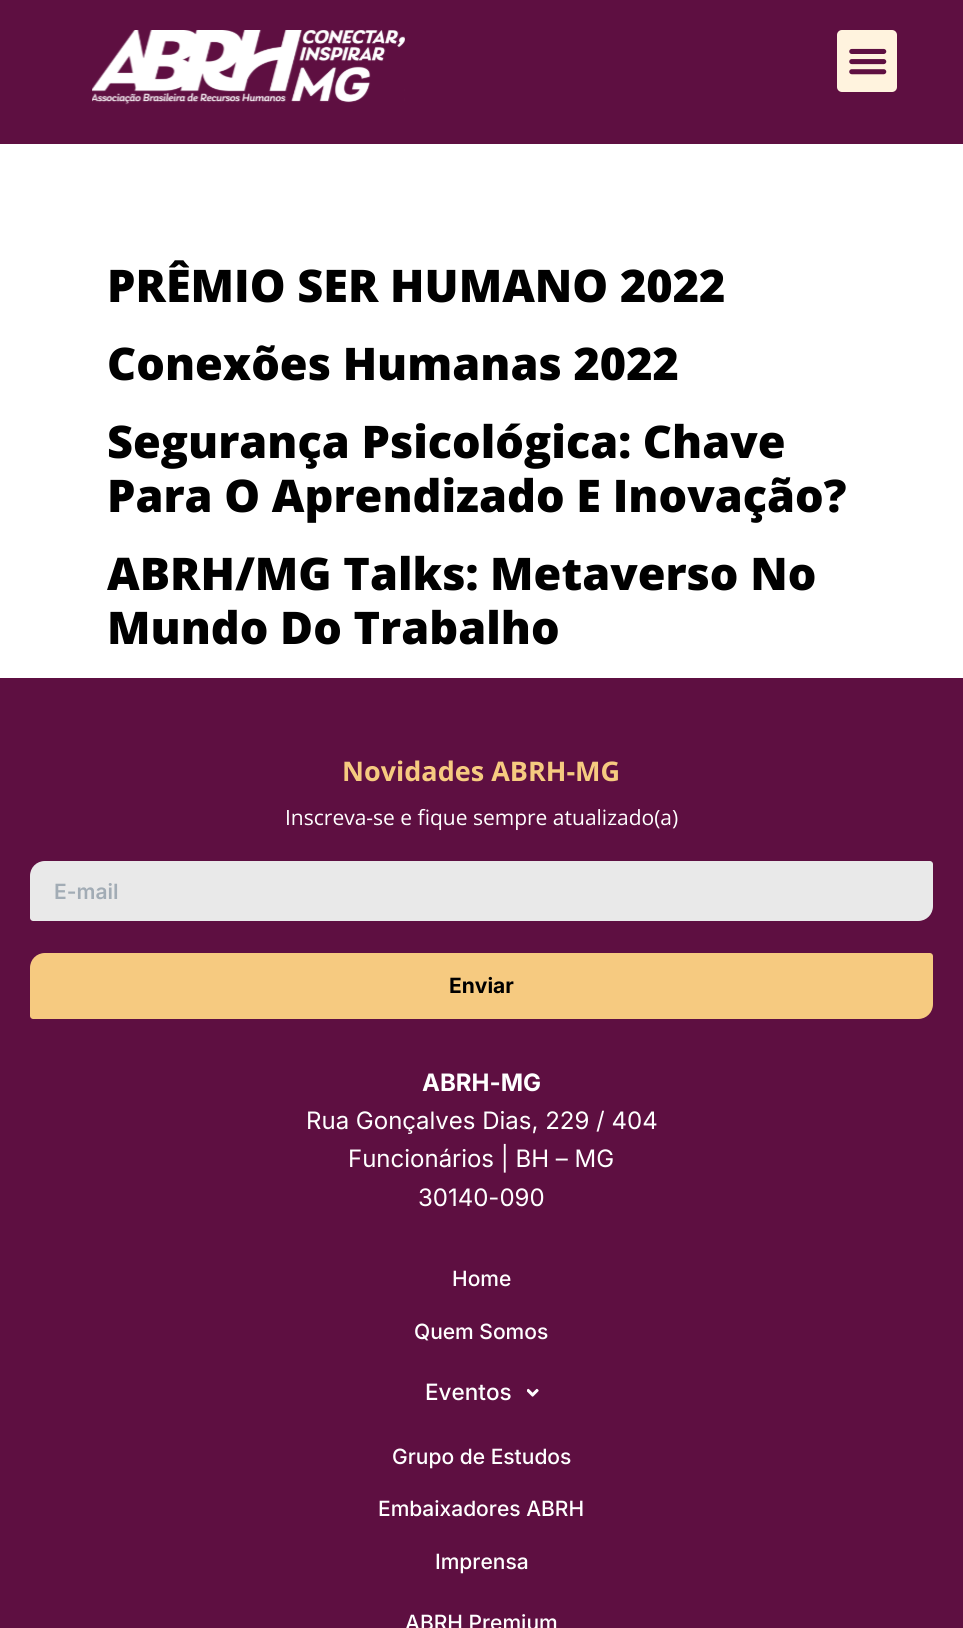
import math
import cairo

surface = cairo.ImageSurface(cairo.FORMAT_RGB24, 963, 1628)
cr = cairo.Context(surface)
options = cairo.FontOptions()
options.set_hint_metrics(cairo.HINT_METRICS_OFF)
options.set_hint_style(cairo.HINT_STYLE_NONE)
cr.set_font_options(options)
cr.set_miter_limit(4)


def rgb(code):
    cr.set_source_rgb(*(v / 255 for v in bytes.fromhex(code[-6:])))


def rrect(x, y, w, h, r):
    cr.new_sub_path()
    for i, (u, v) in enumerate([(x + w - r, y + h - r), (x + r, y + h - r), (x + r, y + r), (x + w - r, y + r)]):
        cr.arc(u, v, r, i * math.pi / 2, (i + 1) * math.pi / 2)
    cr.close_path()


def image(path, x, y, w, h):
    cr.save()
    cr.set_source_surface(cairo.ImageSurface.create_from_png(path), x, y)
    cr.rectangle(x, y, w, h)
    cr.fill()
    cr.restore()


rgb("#ffffff")
cr.paint()
rgb("#5e0f41")
cr.rectangle(0, 0, 963, 144)
cr.fill()
image("img/1.png", 92, 30, 313, 75)
rgb("#fff3de")
rrect(837, 30, 60, 62, 5)
cr.fill()
image("img/2.png", 849, 48, 38, 27)
rgb("#5e0f41")
cr.rectangle(0, 678, 963, 950)
cr.fill()
rgb("#e9e9e9")
cr.new_path()
cr.move_to(45, 861)
cr.line_to(930, 861)
cr.curve_to(931.5, 861, 933, 862.5, 933, 864)
cr.line_to(933, 906)
cr.curve_to(933, 914.5, 926.5, 921, 918, 921)
cr.line_to(33, 921)
cr.curve_to(31.5, 921, 30, 919.5, 30, 918)
cr.line_to(30, 876)
cr.curve_to(30, 867.5, 36.5, 861, 45, 861)
cr.close_path()
cr.fill()
rgb("#f6ca80")
cr.new_path()
cr.move_to(45, 953)
cr.line_to(930, 953)
cr.curve_to(931.5, 953, 933, 954.5, 933, 956)
cr.line_to(933, 1004)
cr.curve_to(933, 1012.5, 926.5, 1019, 918, 1019)
cr.line_to(33, 1019)
cr.curve_to(31.5, 1019, 30, 1017.5, 30, 1016)
cr.line_to(30, 968)
cr.curve_to(30, 959.5, 36.5, 953, 45, 953)
cr.close_path()
cr.fill()
image("img/3.png", 527, 1388, 12, 9)
cr.select_font_face("Open Sans ExtraBold")
cr.set_font_size(45)
rgb("#000000")
for x, y, s in [
    (107, 302, "PRÊMIO SER HUMANO 2022"),
    (107, 380, "Conexões Humanas 2022"),
    (107, 458, "Segurança Psicológica: Chave"),
    (107, 512, "Para O Aprendizado E Inovação?"),
    (107, 590, "ABRH/MG Talks: Metaverso No"),
    (107, 644, "Mundo Do Trabalho"),
]:
    cr.move_to(x, y)
    cr.show_text(s)
cr.select_font_face("Open Sans", cairo.FONT_SLANT_NORMAL, cairo.FONT_WEIGHT_BOLD)
cr.set_font_size(27)
rgb("#f6ca80")
cr.move_to(342, 781)
cr.show_text("Novidades ABRH-MG")
cr.select_font_face("Open Sans")
cr.set_font_size(21)
rgb("#ffffff")
cr.move_to(285, 825)
cr.show_text("Inscreva-se e fique sempre atualizado(a)")
cr.select_font_face("Inter SemiBold")
rgb("#a2acb5")
cr.move_to(54, 899)
cr.show_text("E-mail")
cr.select_font_face("Inter", cairo.FONT_SLANT_NORMAL, cairo.FONT_WEIGHT_BOLD)
rgb("#000000")
cr.move_to(449, 993)
cr.show_text("Enviar")
cr.set_font_size(24)
rgb("#ffffff")
cr.move_to(422, 1091)
cr.show_text("ABRH-MG")
cr.select_font_face("Inter")
for x, y, s in [
    (306, 1129, "Rua Gonçalves Dias, 229 / 404"),
    (348, 1167, "Funcionários | BH – MG"),
    (418, 1206, "30140-090"),
]:
    cr.move_to(x, y)
    cr.show_text(s)
cr.select_font_face("Inter Medium")
cr.set_font_size(21)
cr.move_to(452, 1286)
cr.show_text("Home")
cr.move_to(414, 1339)
cr.show_text("Quem Somos")
cr.set_font_size(22.5)
cr.move_to(425, 1400)
cr.show_text("Eventos")
cr.set_font_size(21)
for x, y, s in [
    (392, 1464, "Grupo de Estudos"),
    (378, 1516, "Embaixadores ABRH"),
    (435, 1569, "Imprensa"),
    (405, 1630, "ABRH Premium"),
]:
    cr.move_to(x, y)
    cr.show_text(s)
surface.write_to_png("page.png")
